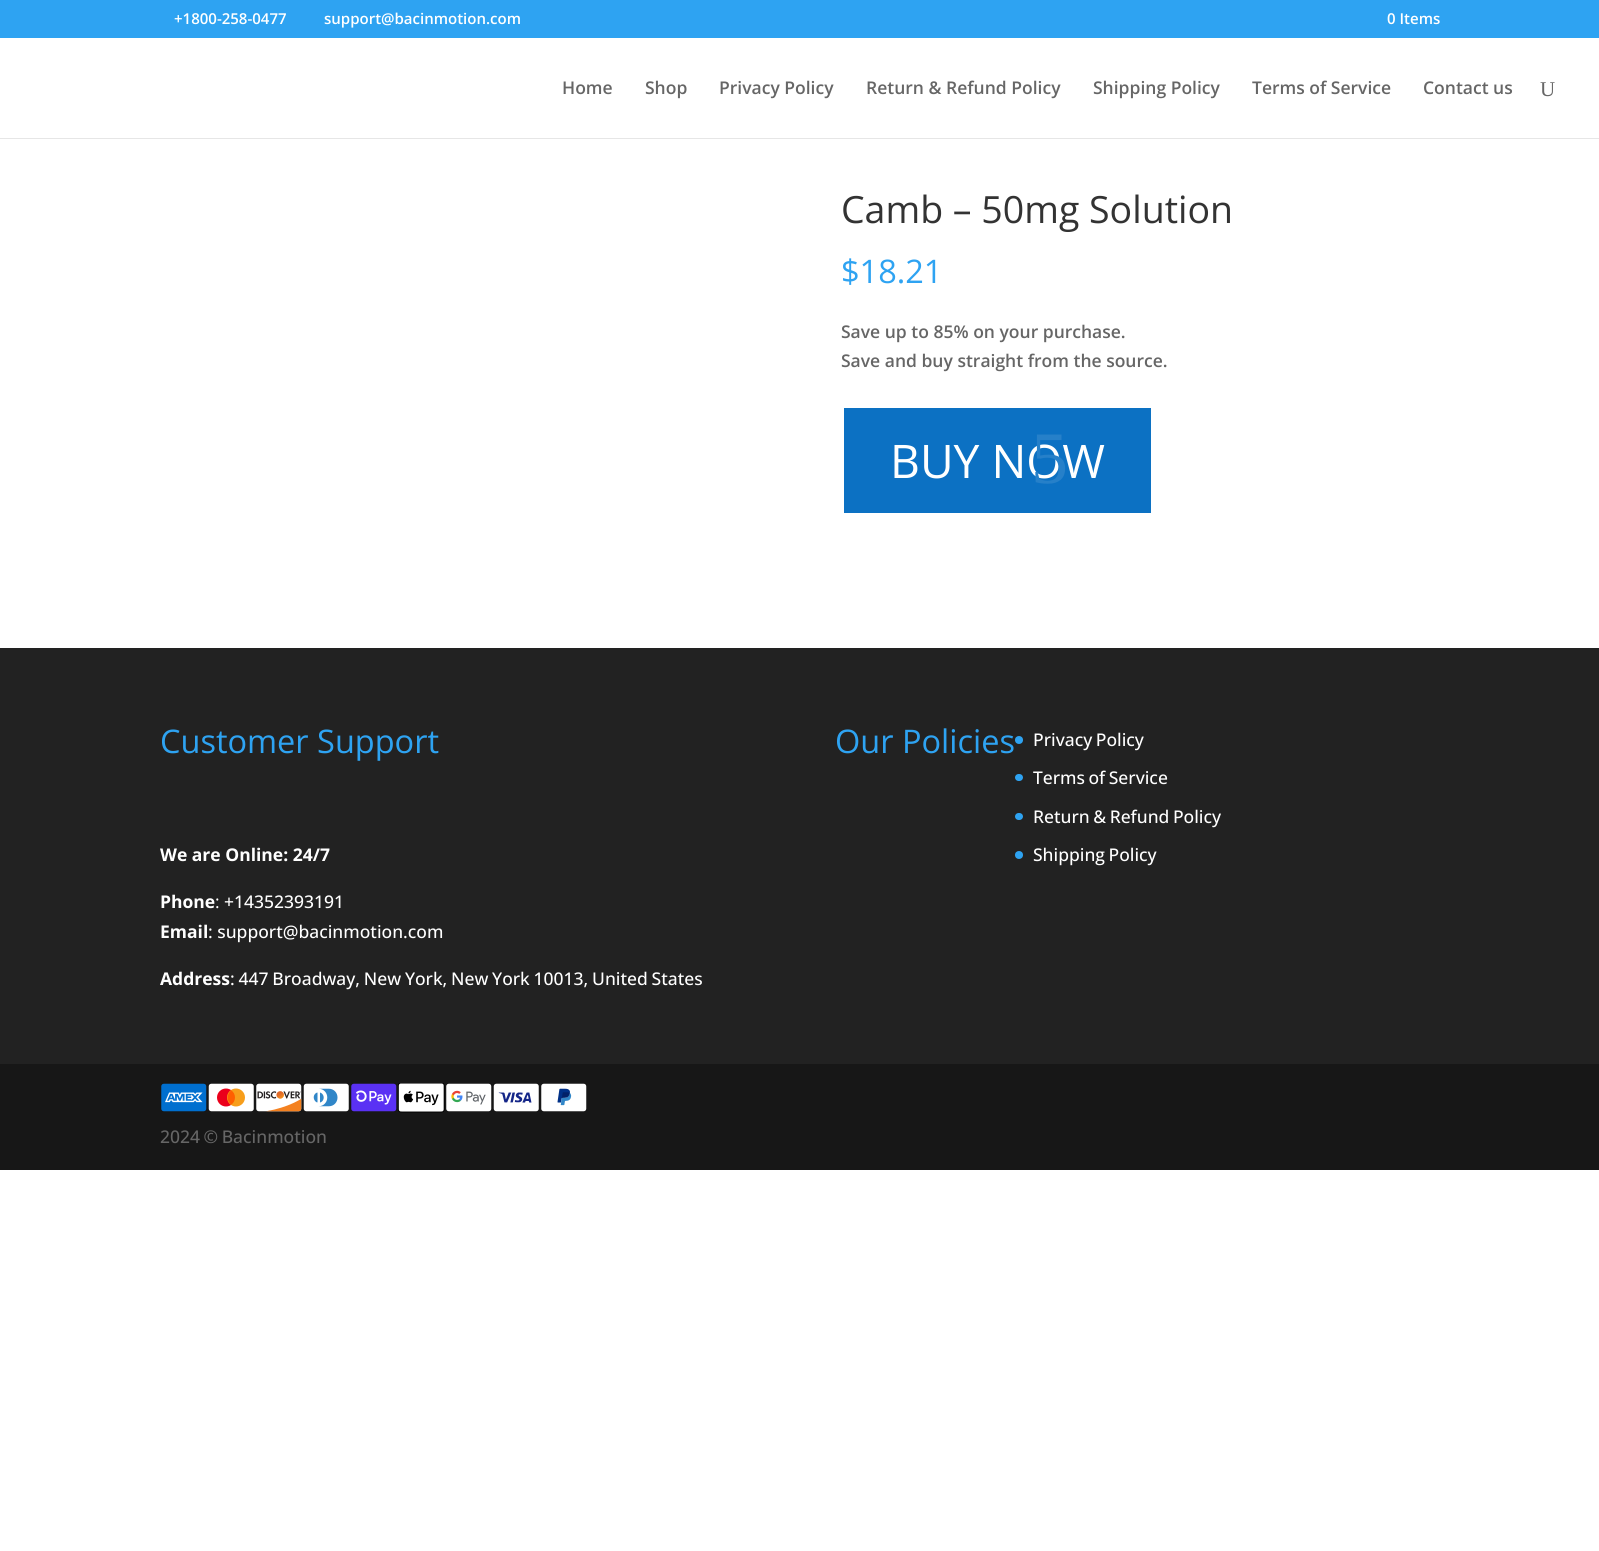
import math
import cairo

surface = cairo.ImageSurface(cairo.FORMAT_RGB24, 1599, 1551)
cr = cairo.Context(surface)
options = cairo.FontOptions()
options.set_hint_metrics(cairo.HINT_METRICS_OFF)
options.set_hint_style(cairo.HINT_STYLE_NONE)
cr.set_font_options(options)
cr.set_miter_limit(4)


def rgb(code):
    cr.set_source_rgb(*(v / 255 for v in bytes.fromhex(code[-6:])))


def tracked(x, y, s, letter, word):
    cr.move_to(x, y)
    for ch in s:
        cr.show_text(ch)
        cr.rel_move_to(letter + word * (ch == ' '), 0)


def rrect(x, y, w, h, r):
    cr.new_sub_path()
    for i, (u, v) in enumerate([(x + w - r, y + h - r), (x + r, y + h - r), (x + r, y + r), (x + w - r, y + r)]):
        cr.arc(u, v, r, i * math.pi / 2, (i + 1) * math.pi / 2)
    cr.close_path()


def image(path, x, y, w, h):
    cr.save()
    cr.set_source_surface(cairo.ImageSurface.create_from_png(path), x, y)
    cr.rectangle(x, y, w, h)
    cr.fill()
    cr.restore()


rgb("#ffffff")
cr.paint()
rgb("#2ea3f2")
cr.rectangle(0, 0, 1599, 38)
cr.fill()
rgb("#e6e6e6")
cr.rectangle(0, 138, 1599, 1)
cr.fill()
rgb("#0c71c3")
rrect(842.5, 406.5, 310, 108, 1)
cr.fill_preserve()
rgb("#ffffff")
cr.set_line_width(3)
cr.stroke()
rgb("#222222")
cr.rectangle(0, 648, 1599, 416)
cr.fill()
rgb("#2ea3f2")
cr.arc(1019, 740, 4, 0, 2 * math.pi)
cr.fill()
rrect(1015, 774, 8, 7, 3.5)
cr.fill()
rrect(1015, 813, 8, 7, 3.5)
cr.fill()
cr.arc(1019, 855, 4, 0, 2 * math.pi)
cr.fill()
rgb("#171717")
cr.rectangle(0, 1064, 1599, 106)
cr.fill()
image("img/1.png", 161, 1083, 46, 29)
image("img/2.png", 208, 1083, 46, 29)
image("img/3.png", 256, 1083, 46, 29)
image("img/4.png", 303, 1083, 46, 29)
image("img/5.png", 351, 1083, 46, 29)
image("img/6.png", 398, 1083, 47, 30)
image("img/7.png", 446, 1083, 46, 29)
image("img/8.png", 493, 1083, 46, 29)
image("img/9.png", 541, 1083, 46, 29)
cr.select_font_face("Open Sans SemiBold")
cr.set_font_size(15)
rgb("#ffffff")
for x, y, s in [
    (174, 24, "+1800-258-0477"),
    (324, 24, "support@bacinmotion.com"),
    (1387, 24, "0 Items"),
]:
    cr.move_to(x, y)
    cr.show_text(s)
cr.set_font_size(17.5)
rgb("#666666")
for x, y, s in [
    (562, 94, "Home"),
    (645, 94, "Shop"),
    (719, 94, "Privacy Policy"),
    (866, 94, "Return & Refund Policy"),
    (1093, 94, "Shipping Policy"),
    (1252, 94, "Terms of Service"),
    (1423, 94, "Contact us"),
]:
    cr.move_to(x, y)
    cr.show_text(s)
cr.select_font_face("Liberation Serif")
cr.set_font_size(21)
cr.move_to(1540, 96)
cr.show_text("U")
cr.select_font_face("Open Sans")
cr.set_font_size(37.5)
rgb("#333333")
cr.move_to(841, 223)
cr.show_text("Camb – 50mg Solution")
cr.set_font_size(32.5)
rgb("#2ea3f2")
cr.move_to(841, 283)
cr.show_text("$18.21")
cr.select_font_face("Open Sans SemiBold")
cr.set_font_size(17.5)
rgb("#666666")
cr.move_to(841, 338)
cr.show_text("Save up to 85% on your purchase.")
cr.move_to(841, 367)
cr.show_text("Save and buy straight from the source.")
cr.select_font_face("Open Sans")
cr.set_font_size(46.25)
rgb("#ffffff")
cr.move_to(890, 478)
cr.show_text("BUY NOW")
cr.select_font_face("Liberation Serif")
cr.set_font_size(74)
rgb("#2680c9")
cr.move_to(1031, 483)
cr.show_text("5")
cr.select_font_face("Open Sans")
cr.set_font_size(32.5)
rgb("#2ea3f2")
cr.move_to(160, 753)
cr.show_text("Customer Support")
cr.select_font_face("Open Sans", cairo.FONT_SLANT_NORMAL, cairo.FONT_WEIGHT_BOLD)
cr.set_font_size(17.5)
rgb("#ffffff")
cr.move_to(160, 861)
cr.show_text("We are Online: 24/7")
cr.move_to(160, 908)
cr.show_text("Phone")
cr.select_font_face("Open Sans")
cr.move_to(215, 908)
cr.show_text(":")
cr.select_font_face("Open Sans Medium")
cr.move_to(224, 908)
cr.show_text("+14352393191")
cr.select_font_face("Open Sans", cairo.FONT_SLANT_NORMAL, cairo.FONT_WEIGHT_BOLD)
cr.move_to(160, 938)
cr.show_text("Email")
cr.select_font_face("Open Sans Medium")
cr.move_to(208, 938)
cr.show_text(": support@bacinmotion.com")
cr.select_font_face("Open Sans", cairo.FONT_SLANT_NORMAL, cairo.FONT_WEIGHT_BOLD)
cr.move_to(160, 985)
cr.show_text("Address")
cr.select_font_face("Open Sans Medium")
tracked(230, 985, ": 447 Broadway, New York, New York 10013, United States", 0, -0.75)
cr.select_font_face("Open Sans")
cr.set_font_size(32.5)
rgb("#2ea3f2")
cr.move_to(835, 753)
cr.show_text("Our Policies")
cr.select_font_face("Open Sans Medium")
cr.set_font_size(17.5)
rgb("#ffffff")
for x, y, s in [
    (1033, 746, "Privacy Policy"),
    (1033, 784, "Terms of Service"),
    (1033, 823, "Return & Refund Policy"),
    (1033, 861, "Shipping Policy"),
]:
    tracked(x, y, s, 0, -1)
rgb("#666666")
tracked(160, 1143, "2024 © Bacinmotion", 0, -1)
surface.write_to_png("page.png")
